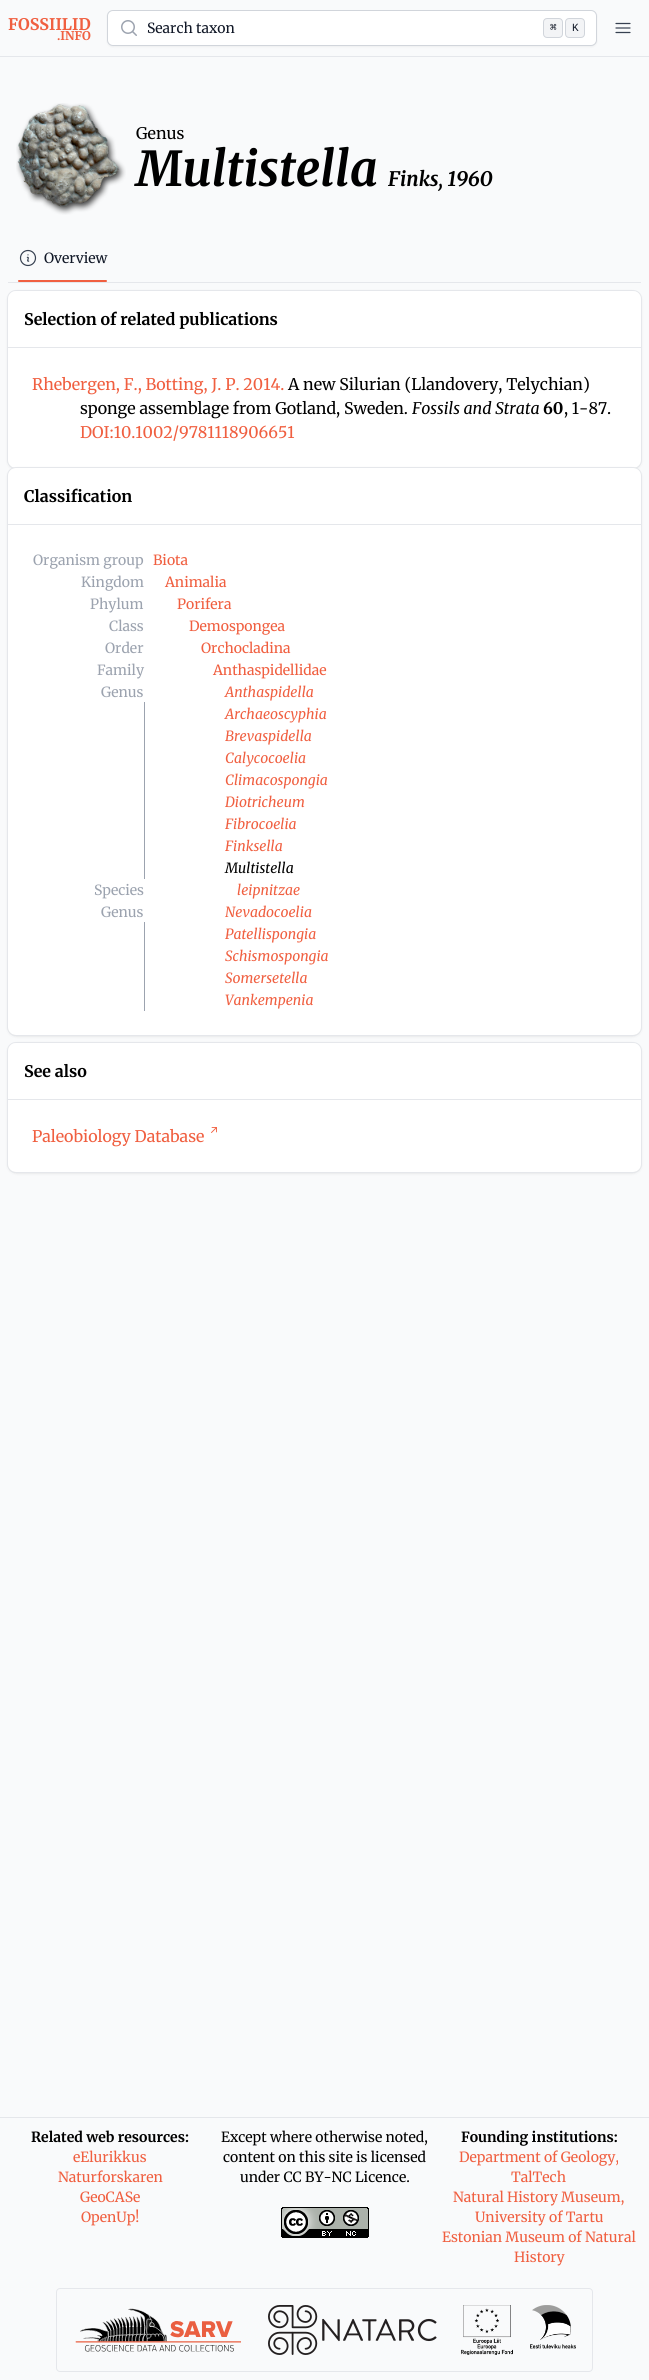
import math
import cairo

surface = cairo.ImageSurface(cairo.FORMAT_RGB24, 649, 2380)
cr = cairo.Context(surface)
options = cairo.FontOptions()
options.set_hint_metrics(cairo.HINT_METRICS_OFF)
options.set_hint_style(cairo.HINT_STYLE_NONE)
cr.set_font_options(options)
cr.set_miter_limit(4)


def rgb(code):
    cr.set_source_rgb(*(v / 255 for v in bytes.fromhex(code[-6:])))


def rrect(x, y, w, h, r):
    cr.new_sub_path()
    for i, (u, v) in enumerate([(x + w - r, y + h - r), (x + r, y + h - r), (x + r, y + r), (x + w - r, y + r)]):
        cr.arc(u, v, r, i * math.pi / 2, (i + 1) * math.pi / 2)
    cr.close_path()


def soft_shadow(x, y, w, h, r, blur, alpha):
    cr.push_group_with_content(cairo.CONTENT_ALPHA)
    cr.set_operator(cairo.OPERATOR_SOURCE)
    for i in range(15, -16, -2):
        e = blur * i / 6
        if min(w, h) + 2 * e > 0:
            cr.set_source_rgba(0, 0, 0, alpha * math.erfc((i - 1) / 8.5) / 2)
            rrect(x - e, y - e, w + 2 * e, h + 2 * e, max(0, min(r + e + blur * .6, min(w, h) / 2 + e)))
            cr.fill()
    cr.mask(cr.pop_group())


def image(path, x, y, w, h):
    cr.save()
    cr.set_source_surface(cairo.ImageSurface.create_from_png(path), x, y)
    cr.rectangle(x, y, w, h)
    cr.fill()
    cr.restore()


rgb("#f9fafb")
cr.paint()
rgb("#e5e7eb")
cr.rectangle(0, 56, 649, 1)
cr.fill()
rgb("#000000")
soft_shadow(107, 11, 490, 36, 6, 1, 0.05)
rgb("#ffffff")
rrect(107.5, 10.5, 489, 35, 5.5)
cr.fill_preserve()
rgb("#d1d5db")
cr.set_line_width(1)
cr.stroke()
image("img/1.png", 121, 20, 16, 16)
rgb("#f3f4f6")
rrect(543.5, 18.5, 19, 19, 3.5)
cr.fill_preserve()
rgb("#d1d5db")
cr.stroke()
rgb("#f3f4f6")
rrect(565.5, 18.5, 19, 19, 3.5)
cr.fill_preserve()
rgb("#d1d5db")
cr.stroke()
cr.new_path()
cr.move_to(616, 23.5)
cr.line_to(630, 23.5)
cr.move_to(616, 28)
cr.line_to(630, 28)
cr.move_to(616, 32.5)
cr.line_to(630, 32.5)
rgb("#374151")
cr.set_line_width(1.2)
cr.set_line_cap(cairo.LINE_CAP_ROUND)
cr.set_line_join(cairo.LINE_JOIN_ROUND)
cr.stroke()
image("img/2.png", 16, 103, 110, 112)
rgb("#e5e7eb")
cr.rectangle(8, 282, 633, 1)
cr.fill()
image("img/3.png", 19, 249, 18, 18)
rgb("#f05f40")
rrect(18, 280, 89, 2, 1)
cr.fill()
rgb("#000000")
soft_shadow(9, 293, 631, 175, 7, 1, 0.1)
soft_shadow(8, 292, 633, 177, 8, 1.5, 0.1)
rrect(7.5, 290.5, 634, 178, 8.5)
rgb("#e5e7eb")
cr.set_line_width(1)
cr.set_line_cap(cairo.LINE_CAP_BUTT)
cr.set_line_join(cairo.LINE_JOIN_MITER)
cr.stroke()
rgb("#ffffff")
rrect(8, 291, 633, 177, 8)
cr.fill()
rgb("#e5e7eb")
cr.rectangle(8, 347, 633, 1)
cr.fill()
rgb("#000000")
soft_shadow(9, 470, 631, 565, 7, 1, 0.1)
soft_shadow(8, 469, 633, 567, 8, 1.5, 0.1)
rrect(7.5, 467.5, 634, 568, 8.5)
rgb("#e5e7eb")
cr.stroke()
rgb("#ffffff")
rrect(8, 468, 633, 567, 8)
cr.fill()
for x, y, w, h, color in [
    (8, 524, 633, 1, "#e5e7eb"),
    (144, 702, 1, 177, "#9ca3af"),
    (144, 922, 1, 89, "#9ca3af"),
]:
    rgb(color)
    cr.rectangle(x, y, w, h)
    cr.fill()
rgb("#000000")
soft_shadow(9, 1045, 631, 127, 7, 1, 0.1)
soft_shadow(8, 1044, 633, 129, 8, 1.5, 0.1)
rrect(7.5, 1042.5, 634, 130, 8.5)
rgb("#e5e7eb")
cr.stroke()
rgb("#ffffff")
rrect(8, 1043, 633, 129, 8)
cr.fill()
rgb("#e5e7eb")
cr.rectangle(8, 1099, 633, 1)
cr.fill()
image("img/4.png", 211, 1127, 6, 6)
cr.rectangle(0, 2117, 649, 1)
cr.fill()
image("img/5.png", 281, 2207, 88, 31)
rrect(56.5, 2288.5, 536, 83, 3.5)
cr.stroke()
image("img/6.png", 75, 2308, 166, 44)
image("img/7.png", 268, 2305, 169, 50)
image("img/8.png", 461, 2305, 115, 50)
cr.select_font_face("Merriweather", cairo.FONT_SLANT_NORMAL, cairo.FONT_WEIGHT_BOLD)
cr.set_font_size(16)
rgb("#f05f40")
cr.move_to(8, 30)
cr.show_text("FOSSIILID")
cr.set_font_size(12)
cr.move_to(57, 40)
cr.show_text(".INFO")
cr.select_font_face("Merriweather")
cr.set_font_size(14)
rgb("#111827")
cr.move_to(147, 33)
cr.show_text("Search taxon")
cr.select_font_face("DejaVu Sans Mono")
cr.set_font_size(11)
cr.move_to(550, 31)
cr.show_text("⌘")
cr.select_font_face("Liberation Mono")
cr.move_to(572, 31)
cr.show_text("K")
cr.select_font_face("Merriweather")
cr.set_font_size(16)
rgb("#000000")
cr.move_to(136, 139)
cr.show_text("Genus")
cr.select_font_face("Merriweather", cairo.FONT_SLANT_ITALIC, cairo.FONT_WEIGHT_BOLD)
cr.set_font_size(48)
cr.move_to(136, 186)
cr.show_text("Multistella")
cr.set_font_size(20)
cr.move_to(388, 186)
cr.show_text("Finks, 1960")
cr.select_font_face("Merriweather")
cr.set_font_size(14)
rgb("#111827")
cr.move_to(44, 263)
cr.show_text("Overview")
cr.select_font_face("Merriweather", cairo.FONT_SLANT_NORMAL, cairo.FONT_WEIGHT_BOLD)
cr.set_font_size(16)
rgb("#000000")
cr.move_to(24, 325)
cr.show_text("Selection of related publications")
cr.select_font_face("Merriweather")
rgb("#f05f40")
cr.move_to(32, 390)
cr.show_text("Rhebergen, F., Botting, J. P. 2014.")
rgb("#000000")
cr.move_to(288, 390)
cr.show_text("A new Silurian (Llandovery, Telychian)")
cr.move_to(80, 414)
cr.show_text("sponge assemblage from Gotland, Sweden.")
cr.select_font_face("Merriweather", cairo.FONT_SLANT_ITALIC)
cr.move_to(412, 414)
cr.show_text("Fossils and Strata")
cr.select_font_face("Merriweather", cairo.FONT_SLANT_NORMAL, cairo.FONT_WEIGHT_BOLD)
cr.move_to(543, 414)
cr.show_text("60")
cr.select_font_face("Merriweather")
cr.move_to(564, 414)
cr.show_text(", 1-87.")
rgb("#f05f40")
cr.move_to(80, 438)
cr.show_text("DOI:10.1002/9781118906651")
cr.select_font_face("Merriweather", cairo.FONT_SLANT_NORMAL, cairo.FONT_WEIGHT_BOLD)
rgb("#000000")
cr.move_to(24, 502)
cr.show_text("Classification")
cr.select_font_face("Merriweather")
cr.set_font_size(14)
rgb("#9ca3af")
cr.move_to(33, 565)
cr.show_text("Organism group")
rgb("#f05f40")
cr.move_to(153, 565)
cr.show_text("Biota")
rgb("#9ca3af")
cr.move_to(81, 587)
cr.show_text("Kingdom")
rgb("#f05f40")
cr.move_to(165, 587)
cr.show_text("Animalia")
rgb("#9ca3af")
cr.move_to(90, 609)
cr.show_text("Phylum")
rgb("#f05f40")
cr.move_to(177, 609)
cr.show_text("Porifera")
rgb("#9ca3af")
cr.move_to(109, 631)
cr.show_text("Class")
rgb("#f05f40")
cr.move_to(189, 631)
cr.show_text("Demospongea")
rgb("#9ca3af")
cr.move_to(105, 653)
cr.show_text("Order")
rgb("#f05f40")
cr.move_to(201, 653)
cr.show_text("Orchocladina")
rgb("#9ca3af")
cr.move_to(97, 675)
cr.show_text("Family")
rgb("#f05f40")
cr.move_to(213, 675)
cr.show_text("Anthaspidellidae")
rgb("#9ca3af")
cr.move_to(101, 697)
cr.show_text("Genus")
cr.select_font_face("Merriweather", cairo.FONT_SLANT_ITALIC)
rgb("#f05f40")
for x, y, s in [
    (225, 697, "Anthaspidella"),
    (225, 719, "Archaeoscyphia"),
    (225, 741, "Brevaspidella"),
    (225, 763, "Calycocoelia"),
    (225, 785, "Climacospongia"),
    (225, 807, "Diotricheum"),
    (225, 829, "Fibrocoelia"),
    (225, 851, "Finksella"),
]:
    cr.move_to(x, y)
    cr.show_text(s)
rgb("#000000")
cr.move_to(225, 873)
cr.show_text("Multistella")
cr.select_font_face("Merriweather")
rgb("#9ca3af")
cr.move_to(94, 895)
cr.show_text("Species")
cr.select_font_face("Merriweather", cairo.FONT_SLANT_ITALIC)
rgb("#f05f40")
cr.move_to(237, 895)
cr.show_text("leipnitzae")
cr.select_font_face("Merriweather")
rgb("#9ca3af")
cr.move_to(101, 917)
cr.show_text("Genus")
cr.select_font_face("Merriweather", cairo.FONT_SLANT_ITALIC)
rgb("#f05f40")
for x, y, s in [
    (225, 917, "Nevadocoelia"),
    (225, 939, "Patellispongia"),
    (225, 961, "Schismospongia"),
    (225, 983, "Somersetella"),
    (225, 1005, "Vankempenia"),
]:
    cr.move_to(x, y)
    cr.show_text(s)
cr.select_font_face("Merriweather", cairo.FONT_SLANT_NORMAL, cairo.FONT_WEIGHT_BOLD)
cr.set_font_size(16)
rgb("#000000")
cr.move_to(24, 1077)
cr.show_text("See also")
cr.select_font_face("Merriweather")
rgb("#f05f40")
cr.move_to(32, 1142)
cr.show_text("Paleobiology Database")
cr.select_font_face("Merriweather", cairo.FONT_SLANT_NORMAL, cairo.FONT_WEIGHT_BOLD)
cr.set_font_size(14)
rgb("#000000")
cr.move_to(31, 2142)
cr.show_text("Related web resources:")
cr.select_font_face("Merriweather")
rgb("#f05f40")
for x, y, s in [
    (73, 2162, "eElurikkus"),
    (58, 2182, "Naturforskaren"),
    (80, 2202, "GeoCASe"),
    (81, 2222, "OpenUp!"),
]:
    cr.move_to(x, y)
    cr.show_text(s)
rgb("#000000")
for x, y, s in [
    (221, 2142, "Except where otherwise noted,"),
    (223, 2162, "content on this site is licensed"),
    (240, 2182, "under CC BY-NC Licence."),
]:
    cr.move_to(x, y)
    cr.show_text(s)
cr.select_font_face("Merriweather", cairo.FONT_SLANT_NORMAL, cairo.FONT_WEIGHT_BOLD)
cr.move_to(461, 2142)
cr.show_text("Founding institutions:")
cr.select_font_face("Merriweather")
rgb("#f05f40")
for x, y, s in [
    (459, 2162, "Department of Geology,"),
    (511, 2182, "TalTech"),
    (453, 2202, "Natural History Museum,"),
    (475, 2222, "University of Tartu"),
    (442, 2242, "Estonian Museum of Natural"),
    (514, 2262, "History"),
]:
    cr.move_to(x, y)
    cr.show_text(s)
surface.write_to_png("page.png")
